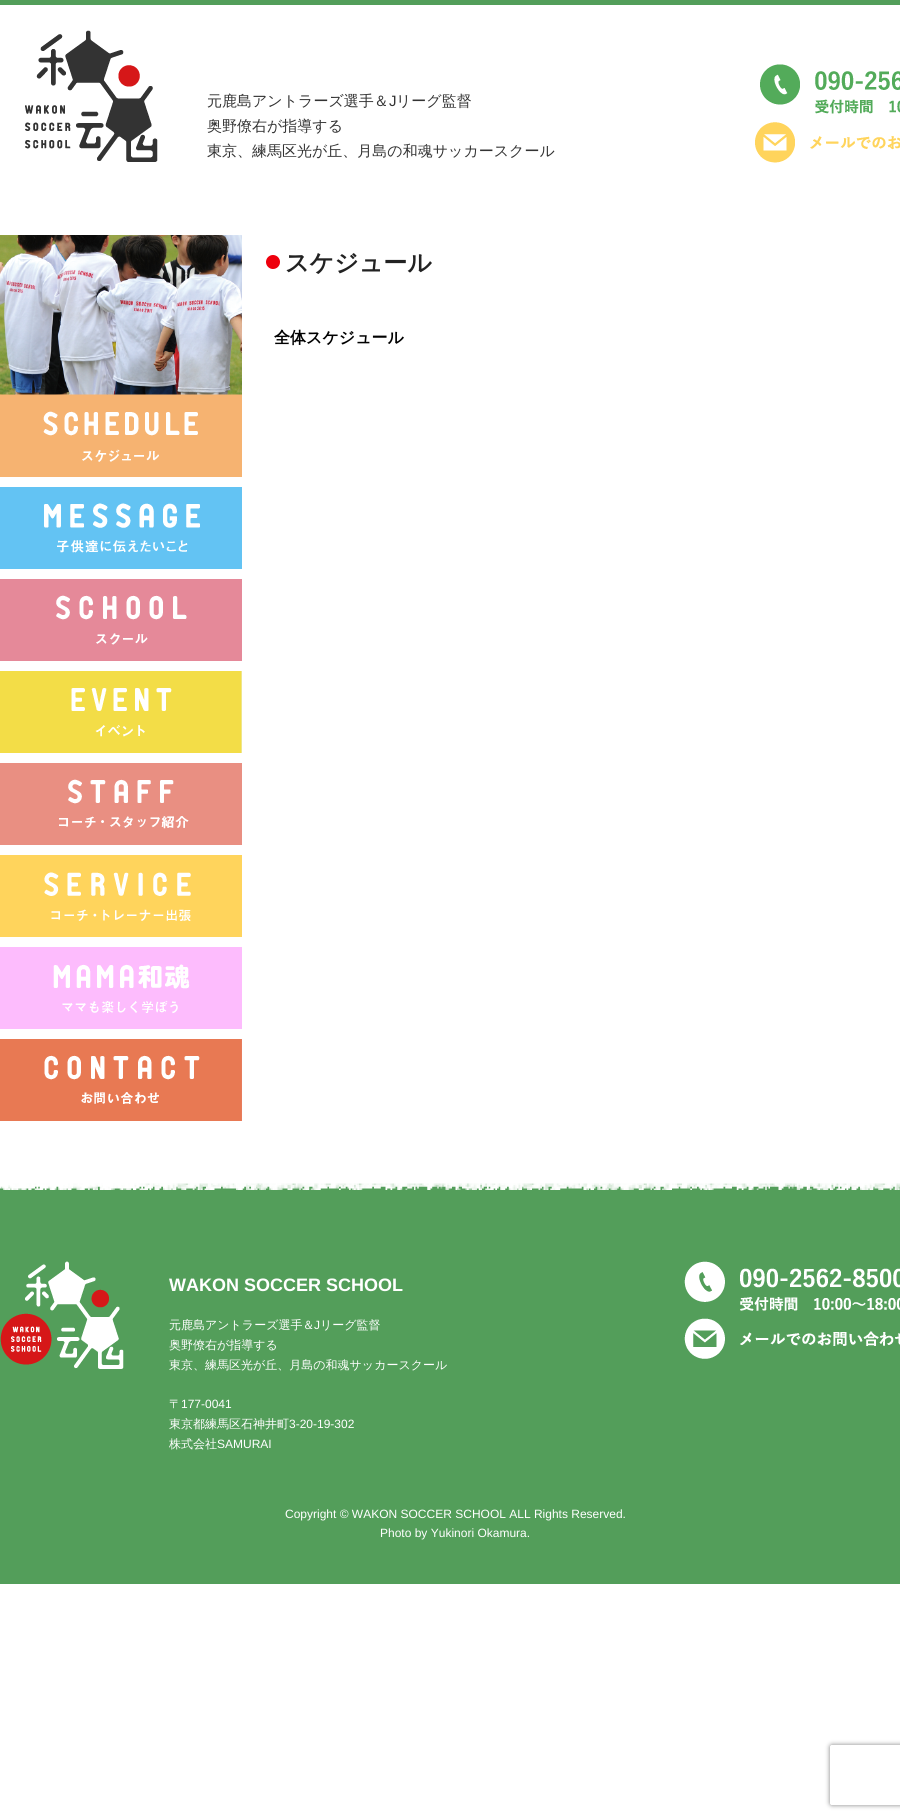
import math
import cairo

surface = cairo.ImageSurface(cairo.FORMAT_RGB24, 900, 1819)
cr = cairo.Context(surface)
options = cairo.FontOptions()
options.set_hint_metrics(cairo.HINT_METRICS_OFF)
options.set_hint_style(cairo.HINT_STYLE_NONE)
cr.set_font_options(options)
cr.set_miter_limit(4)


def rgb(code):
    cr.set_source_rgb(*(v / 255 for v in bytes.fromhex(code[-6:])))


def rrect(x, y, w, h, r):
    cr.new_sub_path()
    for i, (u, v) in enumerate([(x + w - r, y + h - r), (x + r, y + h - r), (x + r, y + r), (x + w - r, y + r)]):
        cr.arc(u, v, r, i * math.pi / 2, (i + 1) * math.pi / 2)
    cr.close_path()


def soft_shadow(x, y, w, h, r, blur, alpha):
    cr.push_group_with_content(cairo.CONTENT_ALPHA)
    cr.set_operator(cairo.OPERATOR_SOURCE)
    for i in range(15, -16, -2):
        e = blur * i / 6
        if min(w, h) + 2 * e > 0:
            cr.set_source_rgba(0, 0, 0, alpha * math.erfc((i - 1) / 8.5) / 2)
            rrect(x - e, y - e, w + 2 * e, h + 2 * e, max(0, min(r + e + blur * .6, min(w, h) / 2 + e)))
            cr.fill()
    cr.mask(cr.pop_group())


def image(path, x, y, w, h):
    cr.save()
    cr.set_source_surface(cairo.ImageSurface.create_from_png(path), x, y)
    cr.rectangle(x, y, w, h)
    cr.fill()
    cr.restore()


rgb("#ffffff")
cr.paint()
rgb("#539e5a")
cr.rectangle(0, 0, 900, 5)
cr.fill()
image("img/1.png", 25, 30, 133, 132)
image("img/2.png", 760, 64, 140, 50)
image("img/3.png", 755, 122, 145, 41)
image("img/4.png", 0, 235, 242, 242)
image("img/5.png", 0, 487, 242, 82)
image("img/6.png", 0, 579, 242, 82)
image("img/7.png", 0, 671, 242, 82)
image("img/8.png", 0, 763, 242, 82)
image("img/9.png", 0, 855, 242, 82)
image("img/10.png", 0, 947, 242, 82)
image("img/11.png", 0, 1039, 242, 82)
image("img/12.png", 266, 255, 14, 14)
cr.rectangle(0, 1190, 900, 394)
cr.fill()
image("img/13.png", 0, 1181, 900, 9)
image("img/14.png", 0, 1261, 124, 108)
image("img/15.png", 684, 1261, 216, 50)
image("img/16.png", 684, 1318, 216, 41)
cr.save()
cr.set_fill_rule(cairo.FILL_RULE_EVEN_ODD)
cr.new_path()
cr.move_to(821, 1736)
cr.line_to(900, 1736)
cr.line_to(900, 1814)
cr.line_to(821, 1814)
cr.close_path()
cr.move_to(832, 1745)
cr.line_to(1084, 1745)
cr.curve_to(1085, 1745, 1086, 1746, 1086, 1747)
cr.line_to(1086, 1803)
cr.curve_to(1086, 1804, 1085, 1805, 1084, 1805)
cr.line_to(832, 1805)
cr.curve_to(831, 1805, 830, 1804, 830, 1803)
cr.line_to(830, 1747)
cr.curve_to(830, 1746, 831, 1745, 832, 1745)
cr.close_path()
cr.clip()
rgb("#808080")
soft_shadow(830, 1745, 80, 60, 2, 2.5, 1)
cr.restore()
cr.select_font_face("WenQuanYi Zen Hei Medium")
cr.set_font_size(15)
rgb("#333333")
cr.move_to(207, 106)
cr.show_text("元鹿島アントラーズ選手＆")
cr.select_font_face("Liberation Sans")
cr.move_to(389, 106)
cr.show_text("J")
cr.select_font_face("WenQuanYi Zen Hei Medium")
for x, y, s in [
    (396, 106, "リーグ監督"),
    (207, 131, "奥野僚右が指導する"),
    (207, 156, "東京、練馬区光が丘、月島の和魂サッカースクール"),
]:
    cr.move_to(x, y)
    cr.show_text(s)
cr.select_font_face("WenQuanYi Zen Hei", cairo.FONT_SLANT_NORMAL, cairo.FONT_WEIGHT_BOLD)
cr.set_font_size(24)
rgb("#222222")
cr.move_to(285, 271)
cr.show_text("スケジュール")
cr.set_font_size(16)
rgb("#000000")
cr.move_to(274, 343)
cr.show_text("全体スケジュール")
cr.select_font_face("Liberation Sans", cairo.FONT_SLANT_NORMAL, cairo.FONT_WEIGHT_BOLD)
cr.set_font_size(18)
rgb("#ffffff")
cr.move_to(169, 1291)
cr.show_text("WAKON SOCCER SCHOOL")
cr.select_font_face("WenQuanYi Zen Hei Medium")
cr.set_font_size(12)
cr.move_to(169, 1329)
cr.show_text("元鹿島アントラーズ選手＆")
cr.select_font_face("Liberation Sans")
cr.move_to(314, 1329)
cr.show_text("J")
cr.select_font_face("WenQuanYi Zen Hei Medium")
for x, y, s in [
    (320, 1329, "リーグ監督"),
    (169, 1349, "奥野僚右が指導する"),
    (169, 1369, "東京、練馬区光が丘、月島の和魂サッカースクール"),
    (169, 1408, "〒"),
]:
    cr.move_to(x, y)
    cr.show_text(s)
cr.select_font_face("Liberation Sans")
cr.move_to(181, 1408)
cr.show_text("177-0041")
cr.select_font_face("WenQuanYi Zen Hei Medium")
cr.move_to(169, 1428)
cr.show_text("東京都練馬区石神井町")
cr.select_font_face("Liberation Sans")
cr.move_to(289, 1428)
cr.show_text("3-20-19-302")
cr.select_font_face("WenQuanYi Zen Hei Medium")
cr.move_to(169, 1448)
cr.show_text("株式会社")
cr.select_font_face("Liberation Sans")
for x, y, s in [
    (217, 1448, "SAMURAI"),
    (285, 1518, "Copyright © WAKON SOCCER SCHOOL ALL Rights Reserved."),
    (380, 1537, "Photo by Yukinori Okamura."),
]:
    cr.move_to(x, y)
    cr.show_text(s)
surface.write_to_png("page.png")
